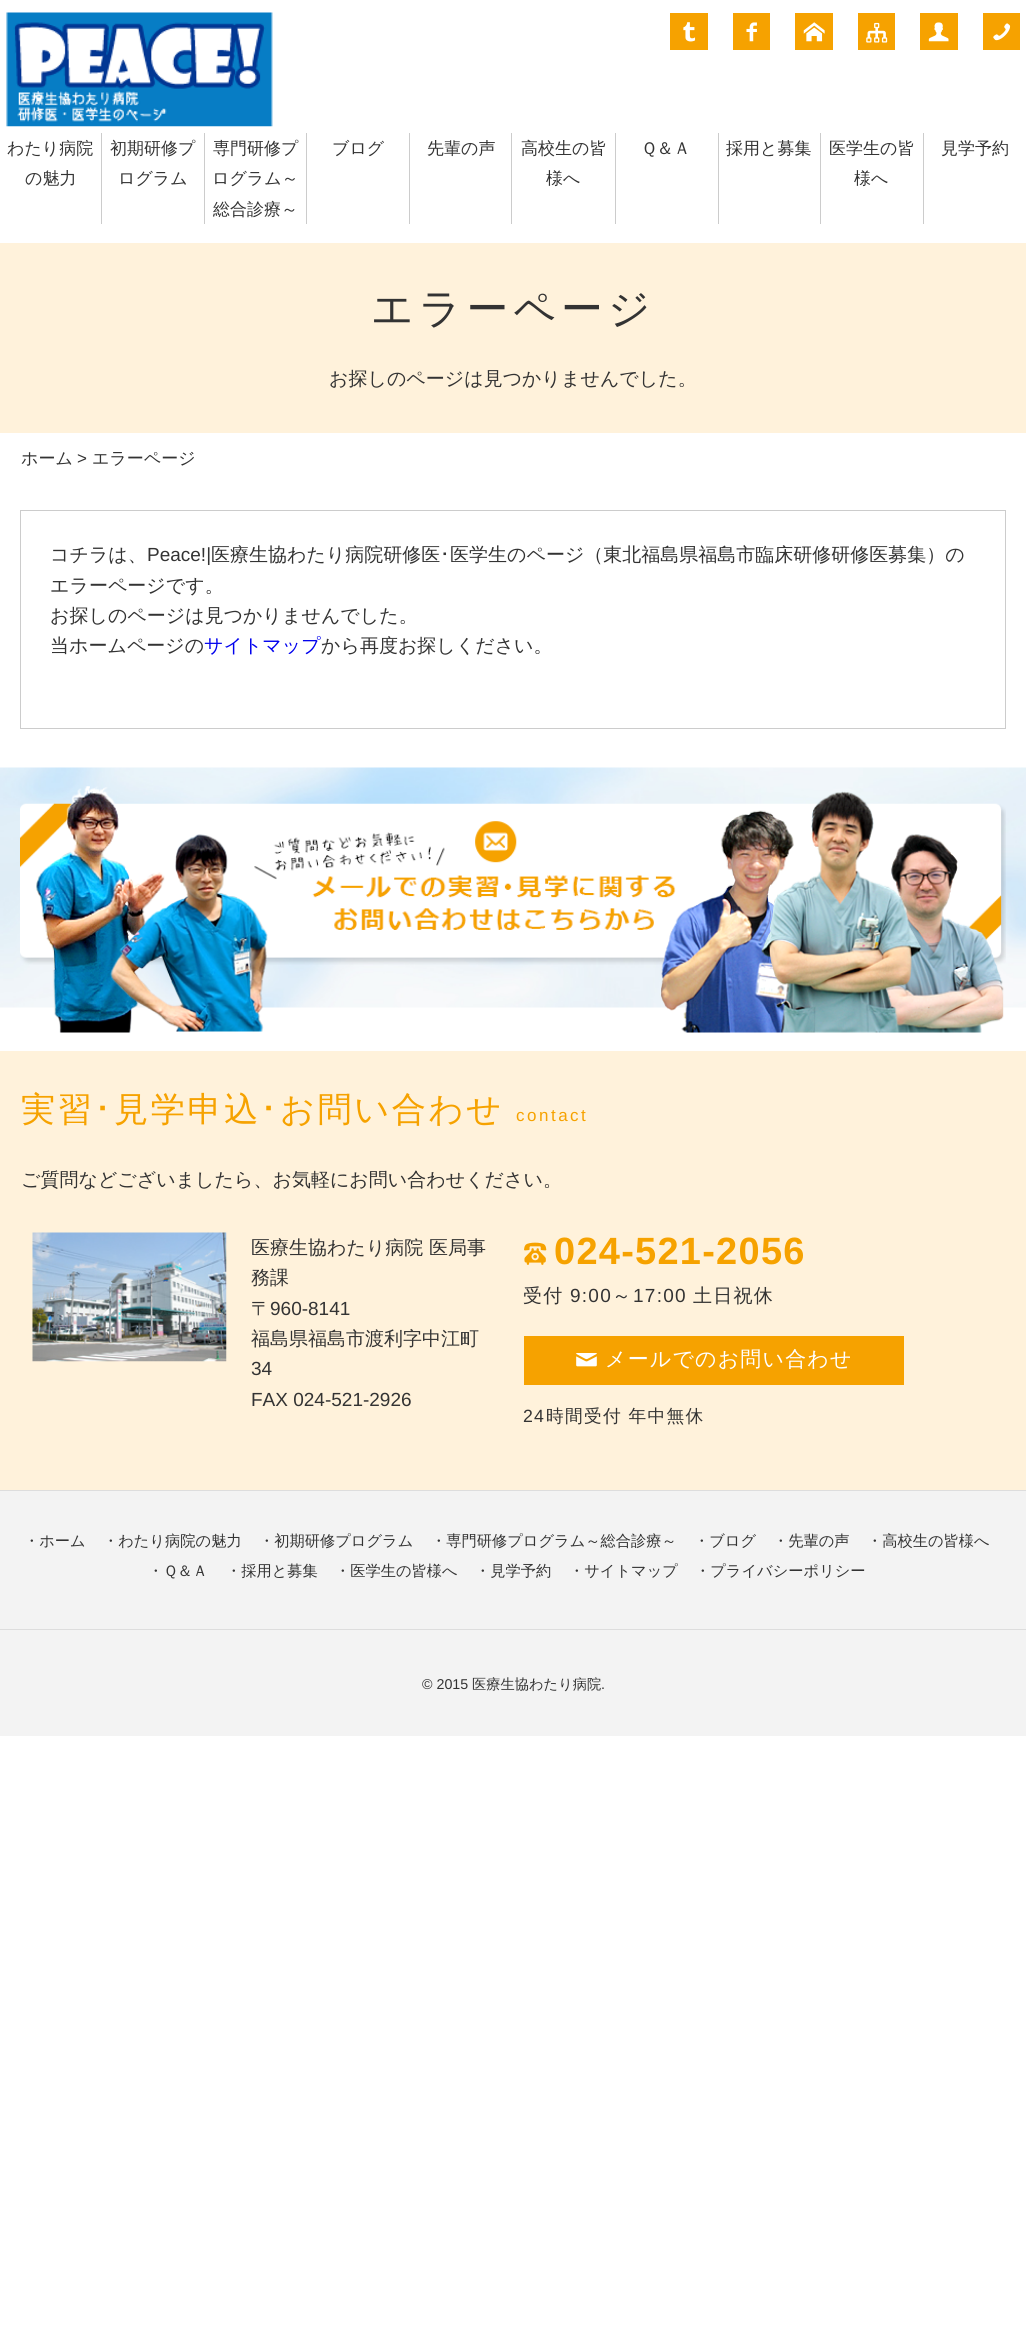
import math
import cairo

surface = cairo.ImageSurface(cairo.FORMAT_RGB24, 1026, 2327)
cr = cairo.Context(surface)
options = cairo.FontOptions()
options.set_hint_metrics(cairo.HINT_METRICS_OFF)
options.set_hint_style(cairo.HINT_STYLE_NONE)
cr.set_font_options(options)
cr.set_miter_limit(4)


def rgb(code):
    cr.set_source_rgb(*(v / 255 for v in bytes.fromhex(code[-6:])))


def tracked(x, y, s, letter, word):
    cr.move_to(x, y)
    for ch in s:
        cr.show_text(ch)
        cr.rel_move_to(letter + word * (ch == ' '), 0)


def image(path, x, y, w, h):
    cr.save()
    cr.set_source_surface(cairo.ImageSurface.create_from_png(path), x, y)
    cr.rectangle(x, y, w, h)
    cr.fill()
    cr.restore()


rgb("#ffffff")
cr.paint()
image("img/1.png", 6, 12, 267, 115)
rgb("#f6a200")
cr.rectangle(670, 13, 38, 37)
cr.fill()
image("img/2.png", 683, 22, 13, 20)
cr.rectangle(733, 13, 37, 37)
cr.fill()
image("img/3.png", 746, 22, 11, 20)
cr.rectangle(795, 13, 38, 37)
cr.fill()
image("img/4.png", 803, 22, 22, 20)
cr.rectangle(858, 13, 37, 37)
cr.fill()
image("img/5.png", 866, 22, 22, 21)
cr.rectangle(920, 13, 38, 37)
cr.fill()
image("img/6.png", 928, 22, 21, 20)
cr.rectangle(983, 13, 37, 37)
cr.fill()
image("img/7.png", 993, 23, 18, 18)
for x, y, w, h, color in [
    (101, 133, 1, 91, "#cccccc"),
    (204, 133, 1, 91, "#cccccc"),
    (306, 133, 1, 91, "#cccccc"),
    (409, 133, 1, 91, "#cccccc"),
    (511, 133, 1, 91, "#cccccc"),
    (615, 133, 1, 91, "#cccccc"),
    (718, 133, 1, 91, "#cccccc"),
    (820, 133, 1, 91, "#cccccc"),
    (923, 133, 1, 91, "#cccccc"),
    (0, 243, 1026, 190, "#fff2db"),
]:
    rgb(color)
    cr.rectangle(x, y, w, h)
    cr.fill()
cr.rectangle(20.5, 510.5, 985, 218)
rgb("#cccccc")
cr.set_line_width(1)
cr.stroke()
image("img/8.png", 0, 767, 1026, 241)
image("img/9.png", 20, 786, 986, 247)
rgb("#fff2db")
cr.rectangle(0, 1051, 1026, 439)
cr.fill()
image("img/10.png", 32, 1232, 195, 130)
image("img/11.png", 524, 1242, 23, 23)
rgb("#f6a200")
cr.rectangle(524, 1336, 380, 49)
cr.fill()
image("img/12.png", 576, 1353, 21, 14)
for x, y, w, h, color in [
    (0, 1491, 1026, 245, "#f3f3f3"),
    (0, 1490, 1026, 1, "#dddddd"),
    (0, 1629, 1026, 1, "#dddddd"),
]:
    rgb(color)
    cr.rectangle(x, y, w, h)
    cr.fill()
cr.select_font_face("WenQuanYi Zen Hei Medium")
cr.set_font_size(17)
rgb("#333333")
for x, y, s in [
    (7, 154, "わたり病院"),
    (25, 184, "の魅力"),
    (110, 154, "初期研修プ"),
    (118, 184, "ログラム"),
    (213, 154, "専門研修プ"),
    (212, 184, "ログラム～"),
    (213, 215, "総合診療～"),
    (332, 154, "ブログ"),
    (427, 154, "先輩の声"),
    (521, 154, "高校生の皆"),
    (546, 184, "様へ"),
    (641, 154, "Ｑ＆Ａ"),
    (726, 154, "採用と募集"),
    (829, 154, "医学生の皆"),
    (854, 184, "様へ"),
    (941, 154, "見学予約"),
]:
    cr.move_to(x, y)
    cr.show_text(s)
cr.set_font_size(41.75)
tracked(371, 323, "エラーページ", 5, 0)
cr.set_font_size(19)
cr.move_to(329, 385)
cr.show_text("お探しのページは見つかりませんでした。")
cr.set_font_size(17)
cr.move_to(21, 464)
cr.show_text("ホーム")
cr.select_font_face("Liberation Sans")
cr.move_to(77, 464)
cr.show_text(">")
cr.select_font_face("WenQuanYi Zen Hei Medium")
cr.move_to(92, 464)
cr.show_text("エラーページ")
cr.set_font_size(19)
cr.move_to(50, 561)
cr.show_text("コチラは、")
cr.select_font_face("Liberation Sans")
cr.move_to(147, 561)
cr.show_text("Peace!|")
cr.select_font_face("WenQuanYi Zen Hei Medium")
cr.move_to(211, 561)
cr.show_text("医療生協わたり病院研修医")
cr.select_font_face("IPAPGothic")
cr.move_to(440, 561)
cr.show_text("･")
cr.select_font_face("WenQuanYi Zen Hei Medium")
for x, y, s in [
    (450, 561, "医学生のページ（東北福島県福島市臨床研修研修医募集）の"),
    (50, 592, "エラーページです。"),
    (50, 622, "お探しのページは見つかりませんでした。"),
    (50, 652, "当ホームページの"),
]:
    cr.move_to(x, y)
    cr.show_text(s)
rgb("#0000ee")
cr.move_to(204, 652)
cr.show_text("サイトマップ")
rgb("#333333")
cr.move_to(321, 652)
cr.show_text("から再度お探しください。")
cr.set_font_size(34.25)
rgb("#f6a200")
tracked(21, 1121, "実習", 2.5, 0)
cr.select_font_face("IPAPGothic")
tracked(94, 1121, "･", 2.5, 0)
cr.select_font_face("WenQuanYi Zen Hei Medium")
tracked(114, 1121, "見学申込", 2.5, 0)
cr.select_font_face("IPAPGothic")
tracked(260, 1121, "･", 2.5, 0)
cr.select_font_face("WenQuanYi Zen Hei Medium")
tracked(280, 1121, "お問い合わせ", 2.5, 0)
cr.select_font_face("Liberation Sans")
cr.set_font_size(17)
tracked(516, 1121, "contact", 2.5, 0)
cr.select_font_face("WenQuanYi Zen Hei Medium")
cr.set_font_size(19)
rgb("#333333")
for x, y, s in [
    (21, 1186, "ご質問などございましたら、お気軽にお問い合わせください。"),
    (251, 1254, "医療生協わたり病院 医局事"),
    (251, 1284, "務課"),
    (251, 1315, "〒"),
]:
    cr.move_to(x, y)
    cr.show_text(s)
cr.select_font_face("Liberation Sans")
cr.move_to(270, 1315)
cr.show_text("960-8141")
cr.select_font_face("WenQuanYi Zen Hei Medium")
cr.move_to(251, 1345)
cr.show_text("福島県福島市渡利字中江町")
cr.select_font_face("Liberation Sans")
cr.move_to(251, 1375)
cr.show_text("34")
cr.move_to(251, 1406)
cr.show_text("FAX 024-521-2926")
cr.select_font_face("Liberation Sans", cairo.FONT_SLANT_NORMAL, cairo.FONT_WEIGHT_BOLD)
cr.set_font_size(38)
rgb("#f6a200")
tracked(554, 1264, "024-521-2056", 1.25, 0)
cr.select_font_face("WenQuanYi Zen Hei Medium")
cr.set_font_size(19)
rgb("#333333")
tracked(523, 1302, "受付", 1.25, 0)
cr.select_font_face("Liberation Sans")
tracked(570, 1302, "9:00", 1.25, 0)
cr.select_font_face("WenQuanYi Zen Hei Medium")
tracked(612, 1302, "～", 1.25, 0)
cr.select_font_face("Liberation Sans")
tracked(633, 1302, "17:00", 1.25, 0)
cr.select_font_face("WenQuanYi Zen Hei Medium")
tracked(693, 1302, "土日祝休", 1.25, 0)
cr.set_font_size(20.9)
rgb("#ffffff")
tracked(605, 1366, "メールでのお問い合わせ", 1.25, 0)
cr.select_font_face("Liberation Sans")
cr.set_font_size(17.75)
rgb("#333333")
tracked(523, 1422, "24", 1.25, 0)
cr.select_font_face("WenQuanYi Zen Hei Medium")
tracked(546, 1422, "時間受付 年中無休", 1.25, 0)
cr.set_font_size(15.25)
for x, y, s in [
    (24, 1546, "・ホーム"),
    (103, 1546, "・わたり病院の魅力"),
    (259, 1546, "・初期研修プログラム"),
    (431, 1546, "・専門研修プログラム～総合診療～"),
    (694, 1546, "・ブログ"),
    (773, 1546, "・先輩の声"),
    (867, 1546, "・高校生の皆様へ"),
    (148, 1576, "・Ｑ＆Ａ"),
    (226, 1576, "・採用と募集"),
    (335, 1576, "・医学生の皆様へ"),
    (475, 1576, "・見学予約"),
    (569, 1576, "・サイトマップ"),
    (695, 1576, "・プライバシーポリシー"),
]:
    cr.move_to(x, y)
    cr.show_text(s)
cr.select_font_face("Liberation Sans")
cr.set_font_size(14.25)
cr.move_to(422, 1689)
cr.show_text("© 2015")
cr.select_font_face("WenQuanYi Zen Hei Medium")
cr.move_to(472, 1689)
cr.show_text("医療生協わたり病院")
cr.select_font_face("Liberation Sans")
cr.move_to(601, 1689)
cr.show_text(".")
surface.write_to_png("page.png")
